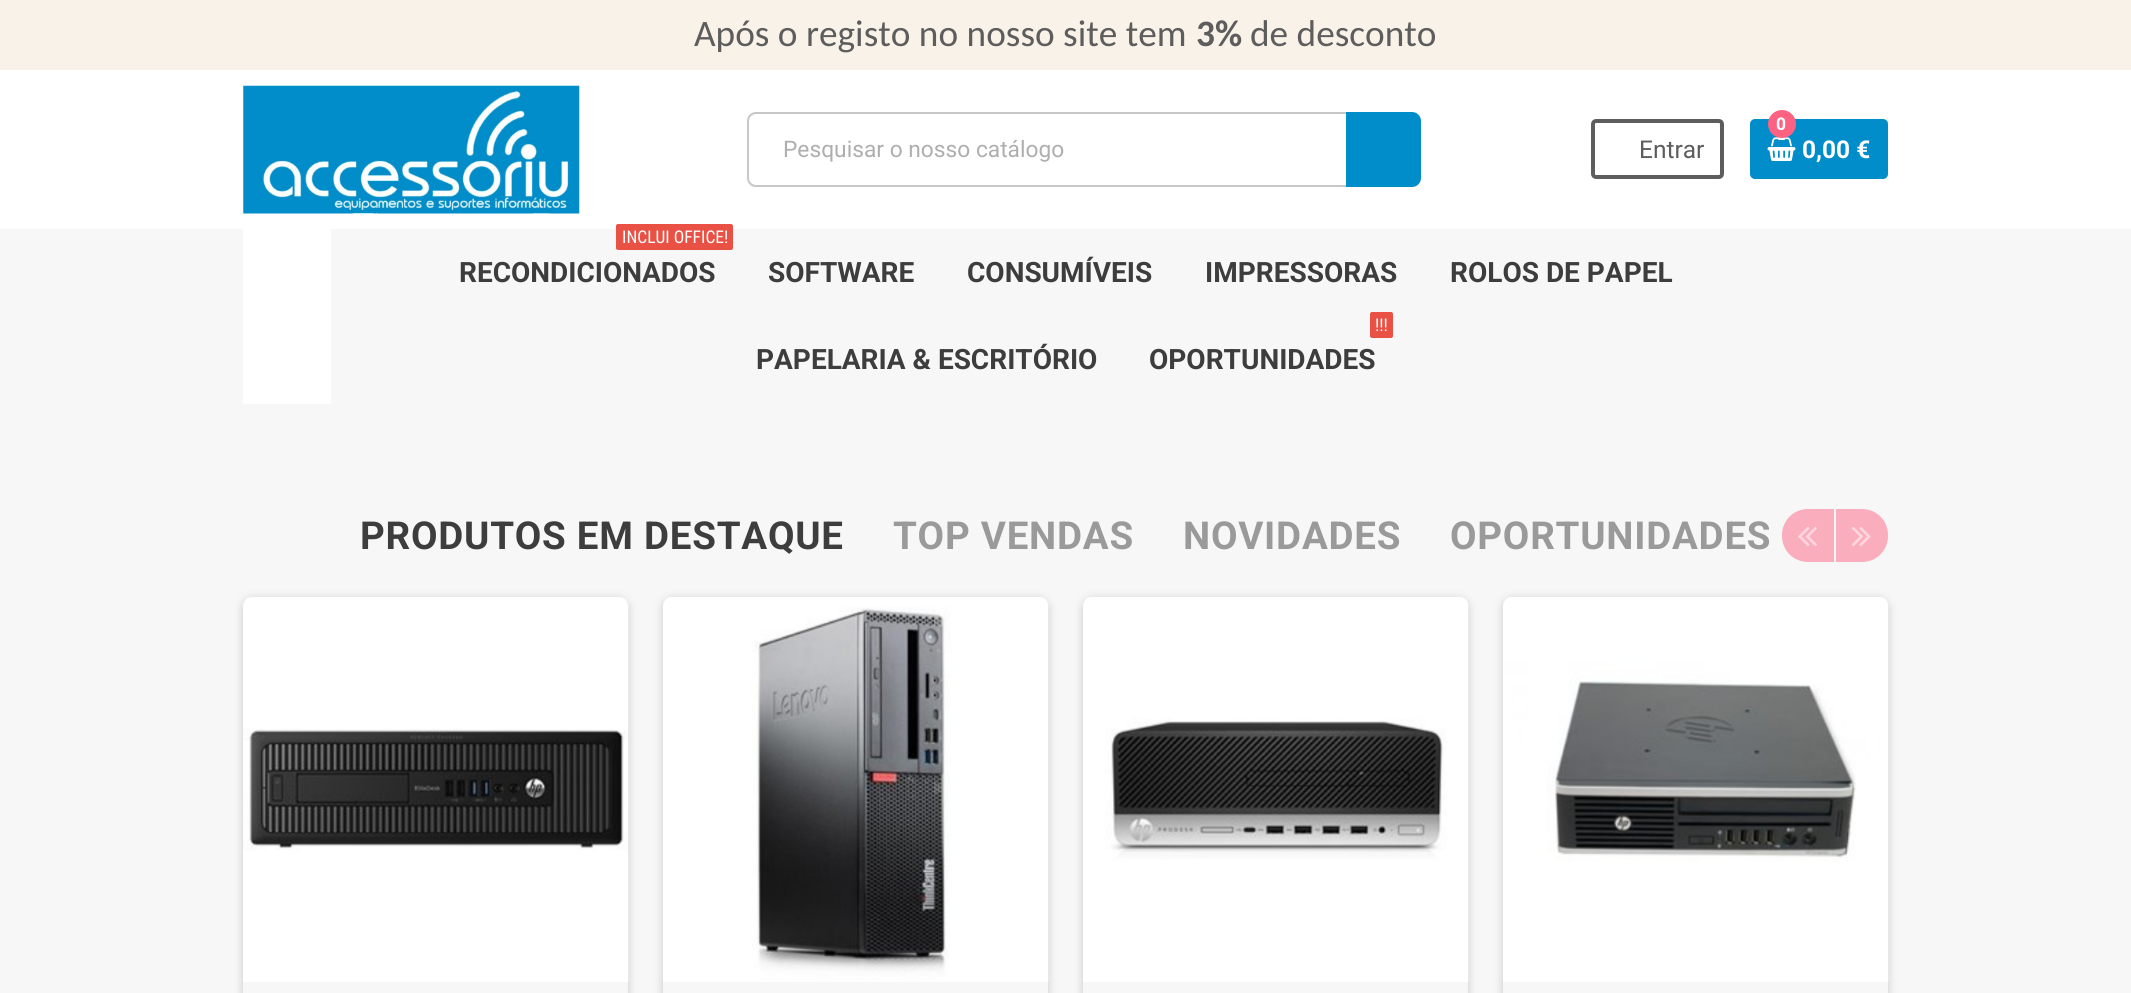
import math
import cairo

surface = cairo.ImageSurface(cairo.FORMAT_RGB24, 2131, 993)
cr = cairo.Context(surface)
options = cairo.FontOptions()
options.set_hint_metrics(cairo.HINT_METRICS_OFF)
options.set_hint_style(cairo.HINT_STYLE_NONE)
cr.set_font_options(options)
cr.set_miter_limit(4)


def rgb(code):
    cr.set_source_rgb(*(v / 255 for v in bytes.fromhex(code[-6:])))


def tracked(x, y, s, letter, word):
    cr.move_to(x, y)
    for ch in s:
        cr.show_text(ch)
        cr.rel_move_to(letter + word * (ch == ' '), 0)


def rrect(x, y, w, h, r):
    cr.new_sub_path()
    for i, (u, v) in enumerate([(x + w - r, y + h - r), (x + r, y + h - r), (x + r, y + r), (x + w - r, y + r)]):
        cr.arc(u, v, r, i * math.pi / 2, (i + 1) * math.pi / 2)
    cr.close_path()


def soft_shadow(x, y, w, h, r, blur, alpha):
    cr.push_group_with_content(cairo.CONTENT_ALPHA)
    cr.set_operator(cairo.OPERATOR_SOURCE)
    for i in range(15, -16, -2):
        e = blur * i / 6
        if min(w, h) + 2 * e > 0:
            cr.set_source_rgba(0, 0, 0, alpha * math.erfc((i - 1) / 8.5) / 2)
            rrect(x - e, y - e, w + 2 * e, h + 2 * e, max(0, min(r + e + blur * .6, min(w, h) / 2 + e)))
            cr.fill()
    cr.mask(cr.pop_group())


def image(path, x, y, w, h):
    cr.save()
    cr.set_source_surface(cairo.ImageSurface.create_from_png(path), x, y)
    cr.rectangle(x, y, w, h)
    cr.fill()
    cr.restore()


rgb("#ffffff")
cr.paint()
rgb("#f9f2e8")
cr.rectangle(0, 0, 2131, 70)
cr.fill()
image("img/1.png", 243, 85, 337, 129)
rrect(748, 113, 670, 73, 8)
rgb("#c7c7c7")
cr.stroke()
rgb("#018dca")
cr.new_path()
cr.move_to(1346, 112)
cr.line_to(1412, 112)
cr.curve_to(1417, 112, 1421, 116, 1421, 121)
cr.line_to(1421, 178)
cr.curve_to(1421, 183, 1417, 187, 1412, 187)
cr.line_to(1346, 187)
cr.close_path()
cr.fill()
rrect(1593, 121, 129, 56, 3)
rgb("#5d5d5d")
cr.set_line_width(4)
cr.stroke()
rgb("#018dca")
rrect(1750, 119, 138, 60, 5)
cr.fill()
image("img/2.png", 1767, 137, 29, 24)
rgb("#fd6282")
cr.arc(1782, 124, 14, 0, 2 * math.pi)
cr.fill()
rgb("#f7f7f7")
cr.rectangle(0, 229, 2131, 764)
cr.fill()
rgb("#ffffff")
cr.rectangle(243, 229, 88, 175)
cr.fill()
rgb("#e95144")
rrect(616, 224, 117, 26, 2)
cr.fill()
rrect(1370, 312, 23, 26, 2)
cr.fill()
rgb("#faadbd")
cr.new_path()
cr.move_to(1808, 509)
cr.line_to(1834, 509)
cr.line_to(1834, 562)
cr.line_to(1808, 562)
cr.curve_to(1793.5, 562, 1782, 550.5, 1782, 536)
cr.line_to(1782, 535)
cr.curve_to(1782, 520.5, 1793.5, 509, 1808, 509)
cr.close_path()
cr.fill()
image("img/3.png", 1798, 526, 19, 21)
cr.new_path()
cr.move_to(1836, 509)
cr.line_to(1862, 509)
cr.curve_to(1876.5, 509, 1888, 520.5, 1888, 535)
cr.line_to(1888, 536)
cr.curve_to(1888, 550.5, 1876.5, 562, 1862, 562)
cr.line_to(1836, 562)
cr.close_path()
cr.fill()
image("img/4.png", 1851, 526, 20, 21)
rgb("#000000")
soft_shadow(243, 599, 385, 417, 9, 4.5, 0.2)
image("img/5.png", 243, 597, 386, 385)
rgb("#f7f7f7")
cr.rectangle(243, 982, 385, 11)
cr.fill()
rgb("#000000")
soft_shadow(663, 599, 385, 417, 9, 4.5, 0.2)
rgb("#ffffff")
rrect(663, 597, 385, 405, 9)
cr.fill()
image("img/6.png", 665, 597, 384, 385)
rgb("#f7f7f7")
cr.rectangle(663, 982, 385, 11)
cr.fill()
rgb("#000000")
soft_shadow(1083, 599, 385, 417, 9, 4.5, 0.2)
rgb("#ffffff")
rrect(1083, 597, 385, 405, 9)
cr.fill()
image("img/7.png", 1085, 597, 384, 385)
rgb("#f7f7f7")
cr.rectangle(1083, 982, 385, 11)
cr.fill()
rgb("#000000")
soft_shadow(1503, 599, 385, 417, 9, 4.5, 0.2)
rgb("#ffffff")
rrect(1503, 597, 385, 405, 9)
cr.fill()
image("img/8.png", 1505, 597, 384, 385)
rgb("#f7f7f7")
cr.rectangle(1503, 982, 385, 11)
cr.fill()
cr.select_font_face("Carlito")
cr.set_font_size(37.3)
rgb("#5d5d5d")
cr.move_to(694, 46)
cr.show_text("Após o registo no nosso site tem")
cr.select_font_face("Carlito", cairo.FONT_SLANT_NORMAL, cairo.FONT_WEIGHT_BOLD)
cr.move_to(1196, 46)
cr.show_text("3%")
cr.select_font_face("Carlito")
cr.move_to(1250, 46)
cr.show_text("de desconto")
cr.select_font_face("Roboto")
cr.set_font_size(22.75)
rgb("#aeaeae")
cr.move_to(783, 157)
cr.show_text("Pesquisar o nosso catálogo")
cr.set_font_size(24.5)
rgb("#5d5d5d")
cr.move_to(1639, 158)
cr.show_text("Entrar")
cr.select_font_face("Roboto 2", cairo.FONT_SLANT_NORMAL, cairo.FONT_WEIGHT_BOLD)
cr.set_font_size(17.5)
rgb("#ffffff")
cr.move_to(1776, 130)
cr.show_text("0")
cr.set_font_size(24.5)
cr.move_to(1802, 158)
cr.show_text("0,00 €")
cr.select_font_face("Roboto Condensed")
cr.set_font_size(17.5)
cr.move_to(622, 243)
cr.show_text("INCLUI OFFICE!")
cr.select_font_face("Roboto", cairo.FONT_SLANT_NORMAL, cairo.FONT_WEIGHT_BOLD)
cr.set_font_size(28)
rgb("#3d3d3d")
for x, y, s in [
    (459, 282, "RECONDICIONADOS"),
    (768, 282, "SOFTWARE"),
    (967, 282, "CONSUMÍVEIS"),
    (1205, 282, "IMPRESSORAS"),
    (1450, 282, "ROLOS DE PAPEL"),
    (756, 369, "PAPELARIA & ESCRITÓRIO"),
]:
    cr.move_to(x, y)
    cr.show_text(s)
cr.select_font_face("Roboto Condensed")
cr.set_font_size(17.5)
rgb("#ffffff")
cr.move_to(1375, 331)
cr.show_text("!!!")
cr.select_font_face("Roboto", cairo.FONT_SLANT_NORMAL, cairo.FONT_WEIGHT_BOLD)
cr.set_font_size(28)
rgb("#3d3d3d")
cr.move_to(1149, 369)
cr.show_text("OPORTUNIDADES")
cr.set_font_size(38.5)
tracked(360, 549, "PRODUTOS EM DESTAQUE", 0.75, 0)
rgb("#9a9a9a")
for x, y, s in [
    (893, 549, "TOP VENDAS"),
    (1183, 549, "NOVIDADES"),
    (1450, 549, "OPORTUNIDADES"),
]:
    tracked(x, y, s, 0.75, 0)
surface.write_to_png("page.png")
